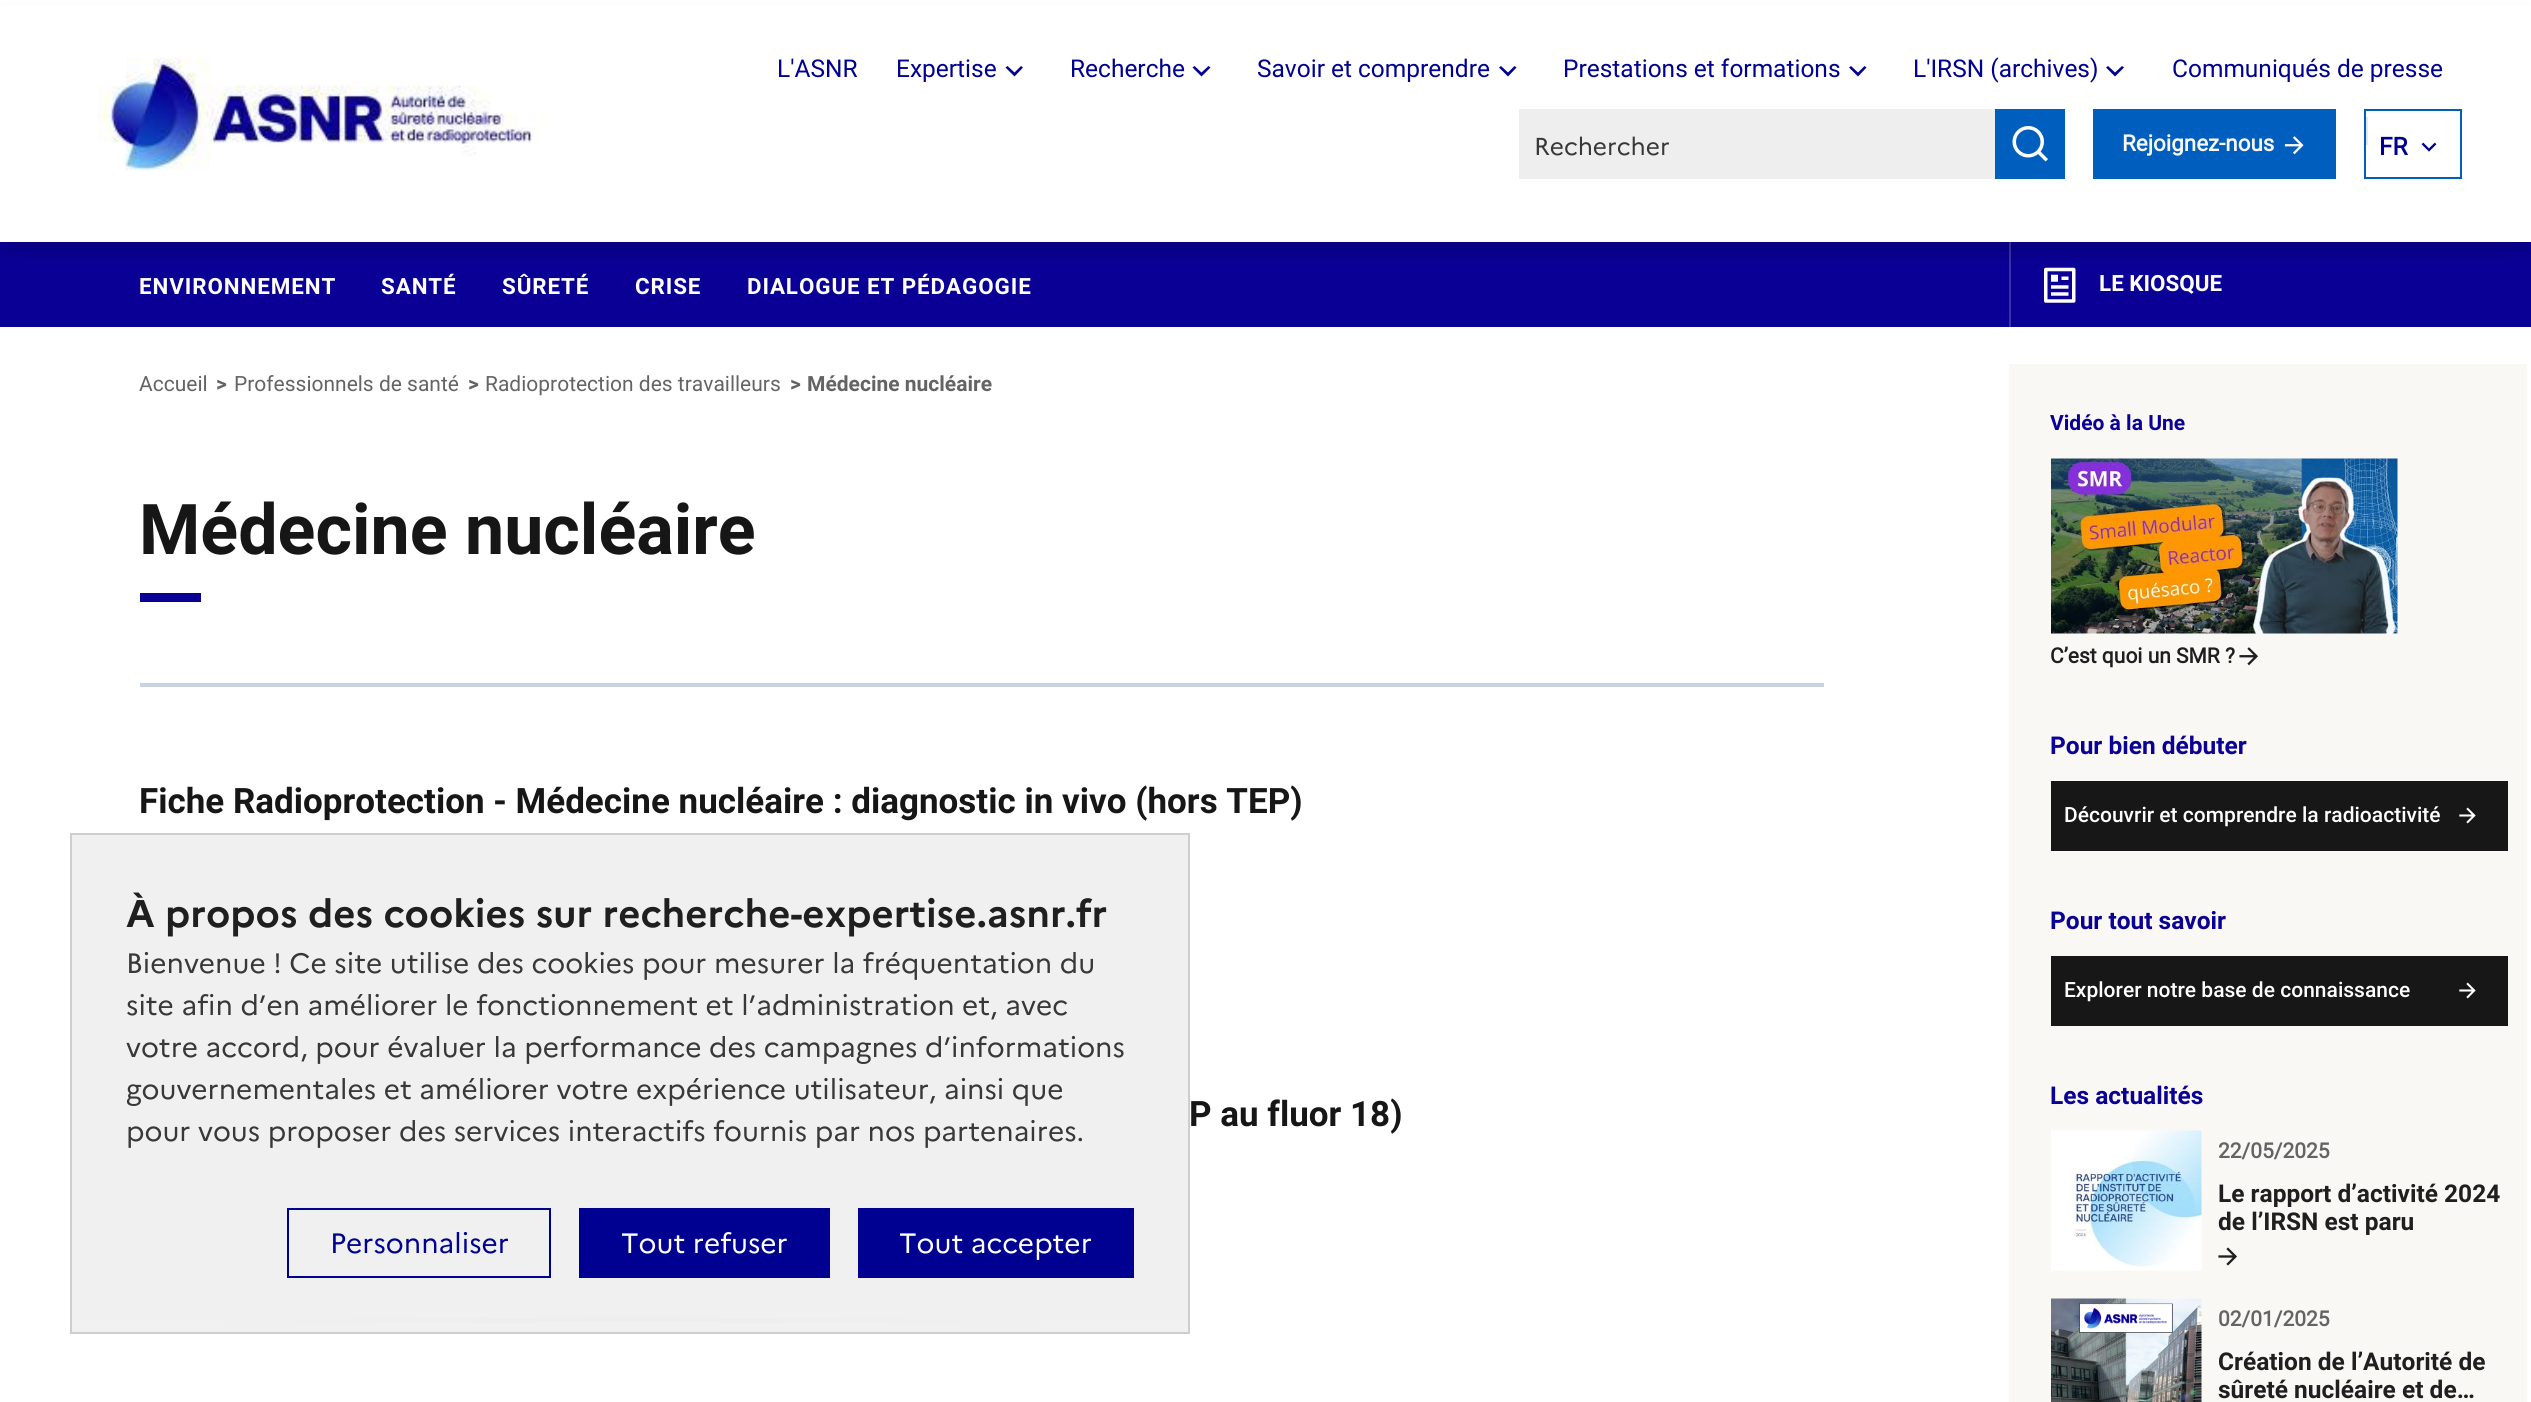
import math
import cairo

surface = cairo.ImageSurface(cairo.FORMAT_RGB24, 2531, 1402)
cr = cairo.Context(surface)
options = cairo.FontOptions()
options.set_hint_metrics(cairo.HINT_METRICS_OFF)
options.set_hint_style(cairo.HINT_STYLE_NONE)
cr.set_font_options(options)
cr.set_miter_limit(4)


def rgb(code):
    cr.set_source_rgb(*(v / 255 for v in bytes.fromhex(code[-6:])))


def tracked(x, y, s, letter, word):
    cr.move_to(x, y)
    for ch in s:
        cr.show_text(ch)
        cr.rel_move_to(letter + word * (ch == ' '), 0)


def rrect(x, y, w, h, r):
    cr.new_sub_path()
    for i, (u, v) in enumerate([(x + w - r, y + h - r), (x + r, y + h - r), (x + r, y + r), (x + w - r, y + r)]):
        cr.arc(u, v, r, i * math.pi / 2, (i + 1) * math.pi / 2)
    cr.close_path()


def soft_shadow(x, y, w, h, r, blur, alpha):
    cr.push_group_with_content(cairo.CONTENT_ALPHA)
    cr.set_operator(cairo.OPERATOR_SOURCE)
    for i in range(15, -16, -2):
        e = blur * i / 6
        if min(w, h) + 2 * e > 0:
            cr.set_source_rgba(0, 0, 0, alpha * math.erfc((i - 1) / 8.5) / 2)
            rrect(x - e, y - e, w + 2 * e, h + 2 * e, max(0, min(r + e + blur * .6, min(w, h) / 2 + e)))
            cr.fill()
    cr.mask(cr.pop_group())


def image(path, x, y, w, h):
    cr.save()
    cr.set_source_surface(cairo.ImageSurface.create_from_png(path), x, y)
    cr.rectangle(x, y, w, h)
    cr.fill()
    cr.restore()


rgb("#ffffff")
cr.paint()
rgb("#0a0096")
cr.rectangle(0, 242, 2531, 85)
cr.fill()
rgb("#3a32a9")
cr.rectangle(2009, 242, 2, 85)
cr.fill()
rgb("#000000")
soft_shadow(28, 42, 2476, 186, 0, 14, 0.32)
soft_shadow(0, 14, 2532, 242, 0, 7, 0.1)
rgb("#ffffff")
cr.rectangle(0, 5, 2531, 237)
cr.fill()
image("img/1.png", 97, 56, 449, 115)
rgb("#000091")
cr.new_path()
cr.move_to(1014.5, 72.5)
cr.line_to(1021, 66)
cr.line_to(1023, 67.5)
cr.line_to(1014.5, 76.5)
cr.line_to(1005.5, 67.5)
cr.line_to(1007.5, 66)
cr.close_path()
cr.fill()
cr.new_path()
cr.move_to(1201.5, 72.5)
cr.line_to(1208.5, 66)
cr.line_to(1210.5, 67.5)
cr.line_to(1201.5, 76.5)
cr.line_to(1192.5, 67.5)
cr.line_to(1194.5, 66)
cr.close_path()
cr.fill()
cr.new_path()
cr.move_to(1508, 72.5)
cr.line_to(1514.5, 66)
cr.line_to(1516.5, 67.5)
cr.line_to(1508, 76.5)
cr.line_to(1499, 67.5)
cr.line_to(1501, 66)
cr.close_path()
cr.fill()
cr.new_path()
cr.move_to(1858, 72.5)
cr.line_to(1864.5, 66)
cr.line_to(1866.5, 67.5)
cr.line_to(1858, 76.5)
cr.line_to(1849, 67.5)
cr.line_to(1851, 66)
cr.close_path()
cr.fill()
cr.new_path()
cr.move_to(2115, 72.5)
cr.line_to(2122, 66)
cr.line_to(2124, 67.5)
cr.line_to(2115, 76.5)
cr.line_to(2106, 67.5)
cr.line_to(2108, 66)
cr.close_path()
cr.fill()
rgb("#eeeeee")
cr.rectangle(1519, 109, 476, 70)
cr.fill()
rgb("#005fbe")
cr.rectangle(1995, 109, 70, 70)
cr.fill()
image("img/2.png", 2012, 126, 36, 36)
cr.rectangle(2093, 109, 243, 70)
cr.fill()
image("img/3.png", 2284, 136, 20, 19)
cr.rectangle(2365, 110, 96, 68)
cr.stroke()
rgb("#e3e9ef")
cr.rectangle(2366, 117, 2, 28)
cr.fill()
image("img/4.png", 2421, 142, 16, 10)
image("img/5.png", 2044, 267, 32, 36)
for x, y, w, h, color in [
    (140, 593, 61, 9, "#0a0096"),
    (140, 683, 1684, 4, "#c8d4df"),
    (2009, 364, 518, 1038, "#faf8f4"),
]:
    rgb(color)
    cr.rectangle(x, y, w, h)
    cr.fill()
image("img/6.png", 2051, 458, 347, 176)
image("img/7.png", 2239, 647, 19, 19)
rgb("#171717")
cr.rectangle(2051, 781, 457, 70)
cr.fill()
image("img/8.png", 2459, 807, 17, 17)
cr.rectangle(2051, 956, 457, 70)
cr.fill()
image("img/8.png", 2459, 982, 17, 17)
image("img/9.png", 2051, 1130, 151, 141)
image("img/10.png", 2218, 1247, 19, 19)
image("img/11.png", 2051, 1298, 151, 104)
rgb("#f0f0f0")
cr.rectangle(72, 844, 1116, 472)
cr.fill()
gradient = cairo.RadialGradient(0, 0, 0, 0, 0, 1)
gradient.set_matrix(cairo.Matrix(1 / 560, 0, 0, 1 / 18, -1 * 630 / 560, -1 * 1334 / 18))
gradient.add_color_stop_rgba(0, 0.537, 0.537, 0.537, 1)
gradient.add_color_stop_rgba(1, 0.941, 0.941, 0.941, 1)
cr.set_source(gradient)
cr.rectangle(72, 1316, 1116, 7)
cr.fill()
gradient = cairo.LinearGradient(630, 1302, 630, 1334)
gradient.add_color_stop_rgba(0, 0.941, 0.941, 0.941, 0)
gradient.add_color_stop_rgba(0.66, 0.941, 0.941, 0.941, 1)
cr.set_source(gradient)
cr.rectangle(72, 1317, 1116, 15)
cr.fill()
gradient = cairo.LinearGradient(630, 833, 630, 865)
gradient.add_color_stop_rgba(0.33, 0.941, 0.941, 0.941, 1)
gradient.add_color_stop_rgba(1, 0.941, 0.941, 0.941, 0)
cr.set_source(gradient)
cr.rectangle(72, 835, 1116, 9)
cr.fill()
cr.rectangle(71, 834, 1118, 499)
rgb("#cecece")
cr.stroke()
cr.rectangle(288, 1209, 262, 68)
rgb("#000091")
cr.stroke()
cr.rectangle(579, 1208, 251, 70)
cr.fill()
cr.rectangle(858, 1208, 276, 70)
cr.fill()
cr.select_font_face("Roboto")
cr.set_font_size(24.5)
for x, y, s in [
    (777, 77, "L'ASNR"),
    (896, 77, "Expertise"),
    (1070, 77, "Recherche"),
    (1257, 77, "Savoir et comprendre"),
    (1563, 77, "Prestations et formations"),
    (1913, 77, "L'IRSN (archives)"),
    (2172, 77, "Communiqués de presse"),
]:
    cr.move_to(x, y)
    cr.show_text(s)
cr.select_font_face("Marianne")
rgb("#383838")
cr.move_to(1534, 155)
cr.show_text("Rechercher")
cr.select_font_face("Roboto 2", cairo.FONT_SLANT_NORMAL, cairo.FONT_WEIGHT_BOLD)
cr.set_font_size(22.4)
rgb("#faf8f4")
cr.move_to(2122, 151)
cr.show_text("Rejoignez-nous")
cr.set_font_size(24.5)
rgb("#000091")
cr.move_to(2379, 155)
cr.show_text("FR")
cr.select_font_face("Roboto", cairo.FONT_SLANT_NORMAL, cairo.FONT_WEIGHT_BOLD)
cr.set_font_size(22.4)
rgb("#ffffff")
for x, y, s in [
    (139, 294, "ENVIRONNEMENT"),
    (381, 294, "SANTÉ"),
    (502, 294, "SÛRETÉ"),
    (635, 294, "CRISE"),
    (747, 294, "DIALOGUE ET PÉDAGOGIE"),
]:
    tracked(x, y, s, 0.9, 0)
cr.move_to(2099, 291)
cr.show_text("LE KIOSQUE")
cr.select_font_face("Roboto")
cr.set_font_size(21)
rgb("#646464")
cr.move_to(139, 391)
cr.show_text("Accueil")
cr.select_font_face("Roboto", cairo.FONT_SLANT_NORMAL, cairo.FONT_WEIGHT_BOLD)
cr.move_to(216, 391)
cr.show_text(">")
cr.select_font_face("Roboto")
cr.move_to(234, 391)
cr.show_text("Professionnels de santé")
cr.select_font_face("Roboto", cairo.FONT_SLANT_NORMAL, cairo.FONT_WEIGHT_BOLD)
cr.move_to(468, 391)
cr.show_text(">")
cr.select_font_face("Roboto")
cr.move_to(485, 391)
cr.show_text("Radioprotection des travailleurs")
cr.select_font_face("Roboto", cairo.FONT_SLANT_NORMAL, cairo.FONT_WEIGHT_BOLD)
cr.move_to(790, 391)
cr.show_text(">")
cr.move_to(807, 391)
cr.show_text("Médecine nucléaire")
cr.set_font_size(70)
rgb("#161616")
cr.move_to(139, 554)
cr.show_text("Médecine nucléaire")
cr.set_font_size(35)
cr.move_to(139, 813)
cr.show_text("Fiche Radioprotection - Médecine nucléaire : diagnostic in vivo (hors TEP)")
cr.move_to(1189, 1126)
cr.show_text("P au fluor 18)")
cr.set_font_size(21)
rgb("#0a0096")
cr.move_to(2050, 430)
cr.show_text("Vidéo à la Une")
cr.select_font_face("Roboto 2", cairo.FONT_SLANT_NORMAL, cairo.FONT_WEIGHT_BOLD)
rgb("#1f1f1f")
cr.move_to(2050, 663)
cr.show_text("C’est quoi un SMR ?")
cr.select_font_face("Roboto", cairo.FONT_SLANT_NORMAL, cairo.FONT_WEIGHT_BOLD)
cr.set_font_size(24.5)
rgb("#0a0096")
cr.move_to(2050, 754)
cr.show_text("Pour bien débuter")
cr.select_font_face("Roboto Medium")
cr.set_font_size(21)
rgb("#ffffff")
cr.move_to(2064, 822)
cr.show_text("Découvrir et comprendre la radioactivité")
cr.select_font_face("Roboto", cairo.FONT_SLANT_NORMAL, cairo.FONT_WEIGHT_BOLD)
cr.set_font_size(24.5)
rgb("#0a0096")
cr.move_to(2050, 929)
cr.show_text("Pour tout savoir")
cr.select_font_face("Roboto Medium")
cr.set_font_size(21)
rgb("#ffffff")
cr.move_to(2064, 997)
cr.show_text("Explorer notre base de connaissance")
cr.select_font_face("Roboto", cairo.FONT_SLANT_NORMAL, cairo.FONT_WEIGHT_BOLD)
cr.set_font_size(24.5)
rgb("#0a0096")
cr.move_to(2050, 1104)
cr.show_text("Les actualités")
cr.select_font_face("Roboto 2", cairo.FONT_SLANT_NORMAL, cairo.FONT_WEIGHT_BOLD)
cr.set_font_size(21)
rgb("#646464")
cr.move_to(2218, 1158)
cr.show_text("22/05/2025")
cr.select_font_face("Roboto", cairo.FONT_SLANT_NORMAL, cairo.FONT_WEIGHT_BOLD)
cr.set_font_size(24.5)
rgb("#1f1f1f")
cr.move_to(2218, 1202)
cr.show_text("Le rapport d’activité 2024")
cr.move_to(2218, 1230)
cr.show_text("de l’IRSN est paru")
cr.select_font_face("Roboto 2", cairo.FONT_SLANT_NORMAL, cairo.FONT_WEIGHT_BOLD)
cr.set_font_size(21)
rgb("#646464")
cr.move_to(2218, 1326)
cr.show_text("02/01/2025")
cr.select_font_face("Roboto", cairo.FONT_SLANT_NORMAL, cairo.FONT_WEIGHT_BOLD)
cr.set_font_size(24.5)
rgb("#1f1f1f")
cr.move_to(2218, 1370)
cr.show_text("Création de l’Autorité de")
cr.move_to(2218, 1398)
cr.show_text("sûreté nucléaire et de…")
cr.select_font_face("Marianne", cairo.FONT_SLANT_NORMAL, cairo.FONT_WEIGHT_BOLD)
cr.set_font_size(38.5)
cr.move_to(126, 927)
cr.show_text("À propos des cookies sur recherche-expertise.asnr.fr")
cr.select_font_face("Marianne")
cr.set_font_size(28)
rgb("#383838")
for x, y, s in [
    (126, 973, "Bienvenue ! Ce site utilise des cookies pour mesurer la fréquentation du"),
    (126, 1015, "site afin d’en améliorer le fonctionnement et l’administration et, avec"),
    (126, 1057, "votre accord, pour évaluer la performance des campagnes d’informations"),
    (126, 1099, "gouvernementales et améliorer votre expérience utilisateur, ainsi que"),
    (126, 1141, "pour vous proposer des services interactifs fournis par nos partenaires."),
]:
    cr.move_to(x, y)
    cr.show_text(s)
rgb("#000091")
cr.move_to(330, 1253)
cr.show_text("Personnaliser")
rgb("#ffffff")
cr.move_to(621, 1253)
cr.show_text("Tout refuser")
cr.move_to(899, 1253)
cr.show_text("Tout accepter")
surface.write_to_png("page.png")
